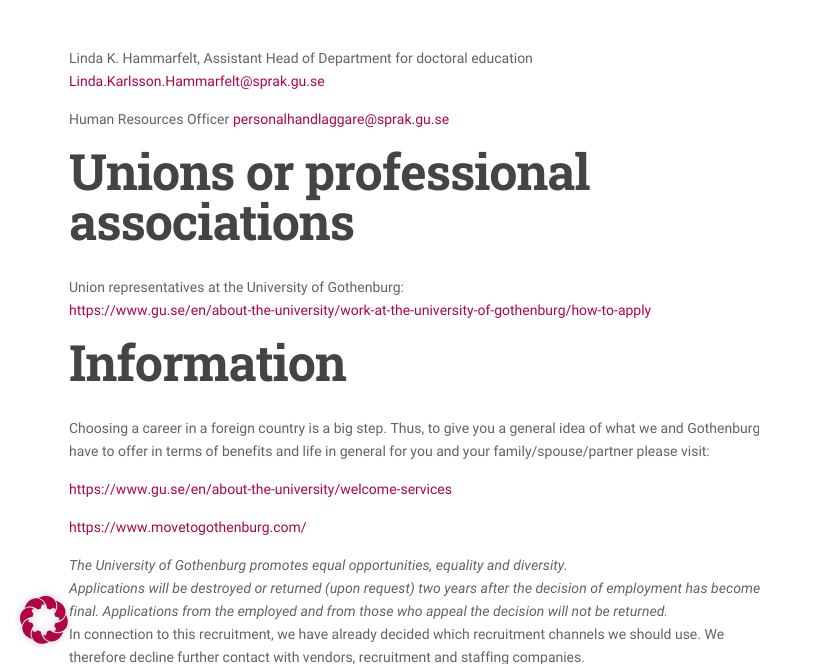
import math
import cairo

surface = cairo.ImageSurface(cairo.FORMAT_RGB24, 832, 664)
cr = cairo.Context(surface)
options = cairo.FontOptions()
options.set_hint_metrics(cairo.HINT_METRICS_OFF)
options.set_hint_style(cairo.HINT_STYLE_NONE)
cr.set_font_options(options)
cr.set_miter_limit(4)


def rgb(code):
    cr.set_source_rgb(*(v / 255 for v in bytes.fromhex(code[-6:])))


def tracked(x, y, s, letter, word):
    cr.move_to(x, y)
    for ch in s:
        cr.show_text(ch)
        cr.rel_move_to(letter + word * (ch == ' '), 0)


def image(path, x, y, w, h):
    cr.save()
    cr.set_source_surface(cairo.ImageSurface.create_from_png(path), x, y)
    cr.rectangle(x, y, w, h)
    cr.fill()
    cr.restore()


rgb("#ffffff")
cr.paint()
cr.select_font_face("Roboto")
cr.set_font_size(14)
rgb("#626262")
cr.move_to(69, 63)
cr.show_text("Linda K. Hammarfelt, Assistant Head of Department for doctoral education")
rgb("#b00446")
cr.move_to(69, 86)
cr.show_text("Linda.Karlsson.Hammarfelt@sprak.gu.se")
rgb("#626262")
cr.move_to(69, 124)
cr.show_text("Human Resources Officer")
rgb("#b00446")
cr.move_to(233, 124)
cr.show_text("personalhandlaggare@sprak.gu.se")
cr.select_font_face("Roboto Slab", cairo.FONT_SLANT_NORMAL, cairo.FONT_WEIGHT_BOLD)
cr.set_font_size(50)
rgb("#444444")
tracked(69, 190, "Unions or professional", -1, 0)
tracked(69, 240, "associations", -1, 0)
cr.select_font_face("Roboto")
cr.set_font_size(14)
rgb("#626262")
cr.move_to(69, 292)
cr.show_text("Union representatives at the University of Gothenburg:")
rgb("#b00446")
cr.move_to(69, 315)
cr.show_text("https://www.gu.se/en/about-the-university/work-at-the-university-of-gothenburg/how-to-apply")
cr.select_font_face("Roboto Slab", cairo.FONT_SLANT_NORMAL, cairo.FONT_WEIGHT_BOLD)
cr.set_font_size(50)
rgb("#444444")
tracked(69, 381, "Information", -1, 0)
cr.select_font_face("Roboto")
cr.set_font_size(14)
rgb("#626262")
cr.move_to(69, 433)
cr.show_text("Choosing a career in a foreign country is a big step. Thus, to give you a general idea of what we and Gothenburg")
cr.move_to(69, 456)
cr.show_text("have to offer in terms of benefits and life in general for you and your family/spouse/partner please visit:")
rgb("#b00446")
cr.move_to(69, 494)
cr.show_text("https://www.gu.se/en/about-the-university/welcome-services")
cr.move_to(69, 532)
cr.show_text("https://www.movetogothenburg.com/")
cr.select_font_face("Roboto", cairo.FONT_SLANT_ITALIC)
rgb("#626262")
for x, y, s in [
    (69, 570, "The University of Gothenburg promotes equal opportunities, equality and diversity."),
    (69, 593, "Applications will be destroyed or returned (upon request) two years after the decision of employment has become"),
    (69, 616, "final. Applications from the employed and from those who appeal the decision will not be returned."),
]:
    cr.move_to(x, y)
    cr.show_text(s)
cr.select_font_face("Roboto")
cr.move_to(69, 639)
cr.show_text("In connection to this recruitment, we have already decided which recruitment channels we should use. We")
image("img/1.png", 15, 591, 57, 57)
cr.move_to(69, 662)
cr.show_text("therefore decline further contact with vendors, recruitment and staffing companies.")
surface.write_to_png("page.png")
